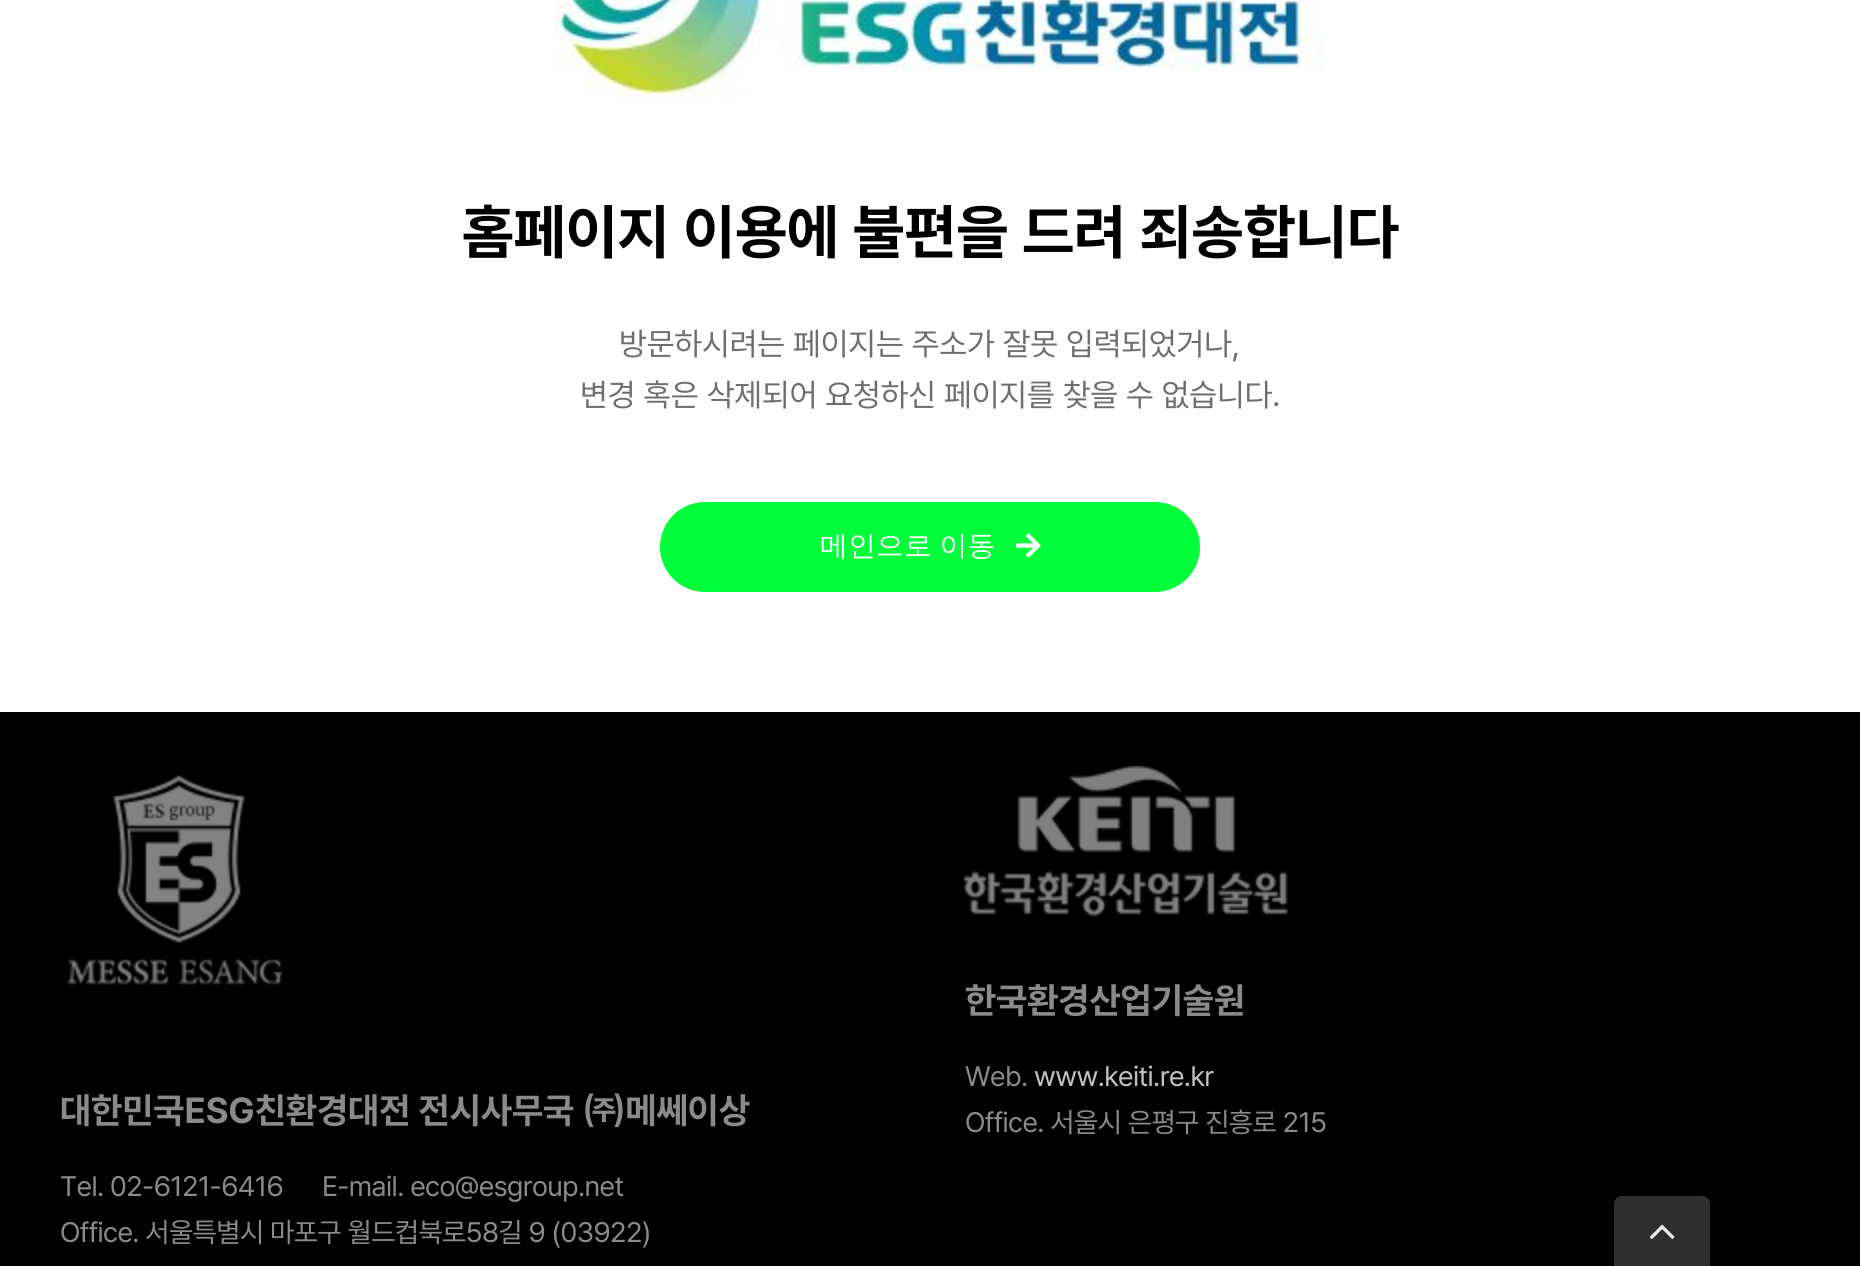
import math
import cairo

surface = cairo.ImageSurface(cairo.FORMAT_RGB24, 1860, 1266)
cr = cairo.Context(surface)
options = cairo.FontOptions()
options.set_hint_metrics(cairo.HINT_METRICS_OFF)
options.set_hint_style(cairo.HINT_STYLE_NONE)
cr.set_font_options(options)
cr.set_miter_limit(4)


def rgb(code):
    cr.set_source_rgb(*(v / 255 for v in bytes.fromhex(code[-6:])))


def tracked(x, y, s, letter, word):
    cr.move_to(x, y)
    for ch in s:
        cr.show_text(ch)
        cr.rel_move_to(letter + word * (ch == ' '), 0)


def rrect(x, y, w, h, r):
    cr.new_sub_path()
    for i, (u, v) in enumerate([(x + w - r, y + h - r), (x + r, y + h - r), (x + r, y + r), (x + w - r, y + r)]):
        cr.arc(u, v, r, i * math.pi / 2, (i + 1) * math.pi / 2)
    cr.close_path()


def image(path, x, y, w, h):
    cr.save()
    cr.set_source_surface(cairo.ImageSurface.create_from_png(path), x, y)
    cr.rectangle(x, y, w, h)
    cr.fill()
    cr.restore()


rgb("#ffffff")
cr.paint()
image("img/1.png", 554, 0, 769, 100)
rgb("#00ff3b")
rrect(661, 503, 538, 88, 44)
cr.fill_preserve()
cr.stroke()
image("img/2.png", 1016, 533, 25, 25)
rgb("#000000")
cr.rectangle(0, 712, 1860, 554)
cr.fill()
image("img/3.png", 964, 766, 324, 150)
image("img/4.png", 67, 775, 216, 210)
rgb("#2e2e2e")
cr.new_path()
cr.move_to(1622, 1196)
cr.line_to(1702, 1196)
cr.curve_to(1706.5, 1196, 1710, 1199.5, 1710, 1204)
cr.line_to(1710, 1266)
cr.line_to(1614, 1266)
cr.line_to(1614, 1204)
cr.curve_to(1614, 1199.5, 1617.5, 1196, 1622, 1196)
cr.close_path()
cr.fill()
image("img/5.png", 1650, 1224, 25, 15)
cr.select_font_face("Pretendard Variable", cairo.FONT_SLANT_NORMAL, cairo.FONT_WEIGHT_BOLD)
cr.set_font_size(60)
rgb("#000000")
cr.move_to(462, 253)
cr.show_text("홈페이지 이용에 불편을 드려 죄송합니다")
cr.select_font_face("Pretendard Variable")
cr.set_font_size(32)
rgb("#6e6e6e")
cr.move_to(619, 355)
cr.show_text("방문하시려는 페이지는 주소가 잘못 입력되었거나,")
cr.move_to(580, 406)
cr.show_text("변경 혹은 삭제되어 요청하신 페이지를 찾을 수 없습니다.")
cr.select_font_face("WenQuanYi Zen Hei Medium")
cr.set_font_size(28)
rgb("#ffffff")
tracked(820, 555, "메인으로 이동", 0, -1)
cr.select_font_face("Pretendard Variable", cairo.FONT_SLANT_NORMAL, cairo.FONT_WEIGHT_BOLD)
cr.set_font_size(36)
rgb("#8c8989")
cr.move_to(965, 1013)
cr.show_text("한국환경산업기술원")
cr.select_font_face("Pretendard Variable")
cr.set_font_size(28)
tracked(965, 1086, "Web.", -0.55, 0)
rgb("#c0c1c1")
tracked(1034, 1086, "www.keiti.re.kr", -0.55, 0)
rgb("#8c8989")
tracked(965, 1132, "Office. 서울시 은평구 진흥로 215", -0.55, 0)
cr.select_font_face("Pretendard Variable", cairo.FONT_SLANT_NORMAL, cairo.FONT_WEIGHT_BOLD)
cr.set_font_size(36)
cr.move_to(60, 1123)
cr.show_text("대한민국ESG친환경대전 전시사무국 ㈜메쎄이상")
cr.select_font_face("Pretendard Variable")
cr.set_font_size(28)
tracked(60, 1196, "Tel. 02-6121-6416      E-mail. eco@esgroup.net", -0.55, 0)
tracked(60, 1242, "Office. 서울특별시 마포구 월드컵북로58길 9 (03922)", -0.55, 0)
surface.write_to_png("page.png")
